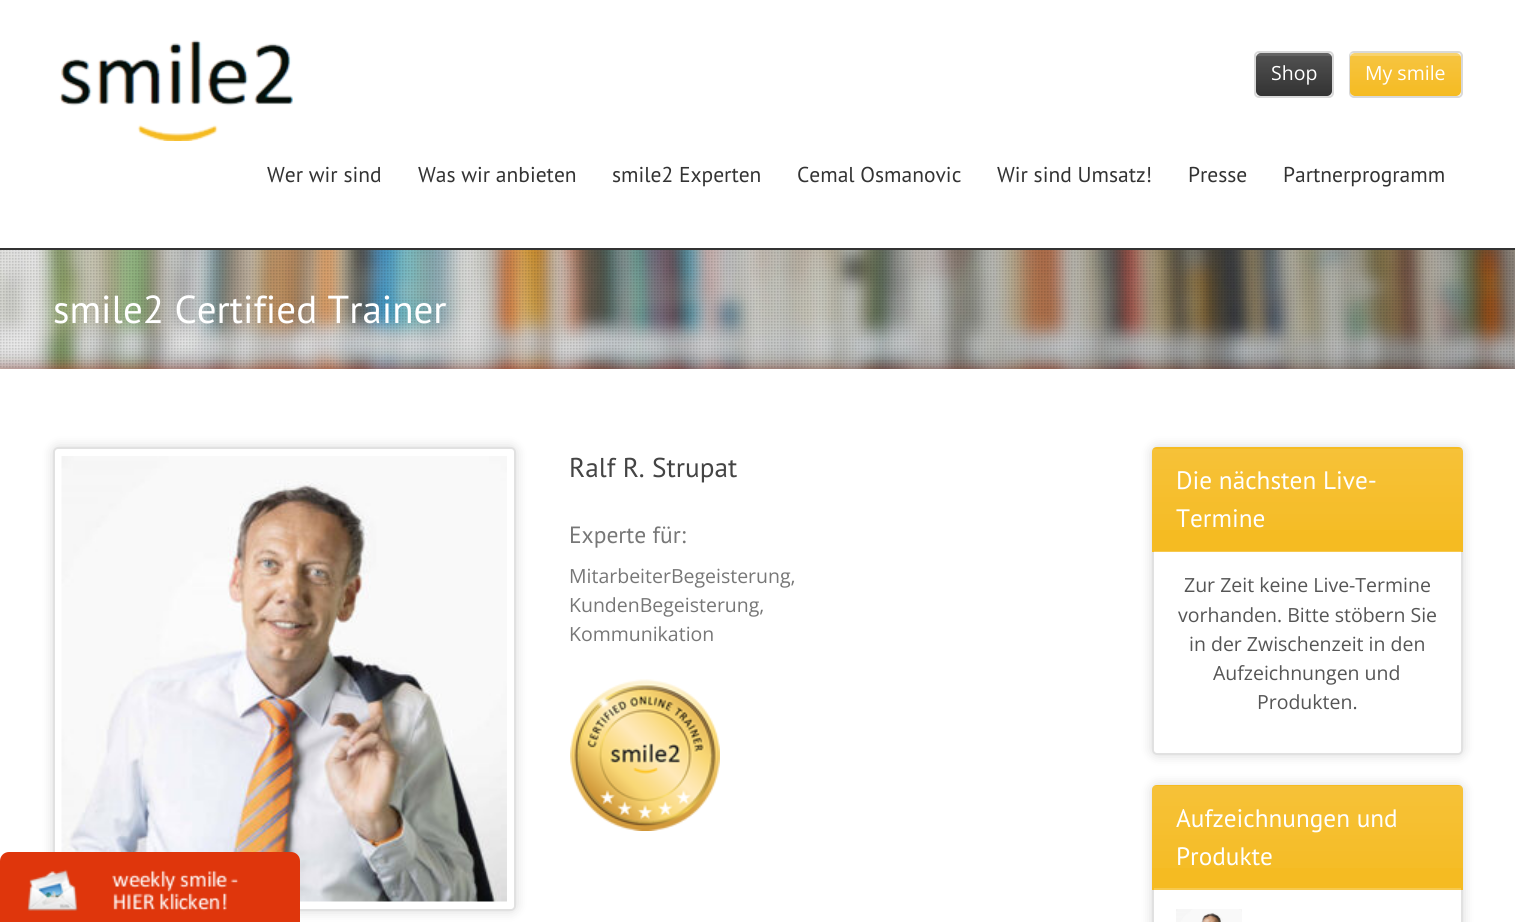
import math
import cairo

surface = cairo.ImageSurface(cairo.FORMAT_RGB24, 1515, 922)
cr = cairo.Context(surface)
options = cairo.FontOptions()
options.set_hint_metrics(cairo.HINT_METRICS_OFF)
options.set_hint_style(cairo.HINT_STYLE_NONE)
cr.set_font_options(options)
cr.set_miter_limit(4)


def rgb(code):
    cr.set_source_rgb(*(v / 255 for v in bytes.fromhex(code[-6:])))


def rrect(x, y, w, h, r):
    cr.new_sub_path()
    for i, (u, v) in enumerate([(x + w - r, y + h - r), (x + r, y + h - r), (x + r, y + r), (x + w - r, y + r)]):
        cr.arc(u, v, r, i * math.pi / 2, (i + 1) * math.pi / 2)
    cr.close_path()


def soft_shadow(x, y, w, h, r, blur, alpha):
    cr.push_group_with_content(cairo.CONTENT_ALPHA)
    cr.set_operator(cairo.OPERATOR_SOURCE)
    for i in range(15, -16, -2):
        e = blur * i / 6
        if min(w, h) + 2 * e > 0:
            cr.set_source_rgba(0, 0, 0, alpha * math.erfc((i - 1) / 8.5) / 2)
            rrect(x - e, y - e, w + 2 * e, h + 2 * e, max(0, min(r + e + blur * .6, min(w, h) / 2 + e)))
            cr.fill()
    cr.mask(cr.pop_group())


def image(path, x, y, w, h):
    cr.save()
    cr.set_source_surface(cairo.ImageSurface.create_from_png(path), x, y)
    cr.rectangle(x, y, w, h)
    cr.fill()
    cr.restore()


rgb("#ffffff")
cr.paint()
image("img/1.png", 59, 40, 234, 101)
rrect(1255, 52, 78, 45, 4)
rgb("#d9d9d9")
cr.stroke()
rgb("#333333")
rrect(1256, 53, 76, 43, 5)
cr.fill()
gradient = cairo.LinearGradient(1294, 53, 1294, 96)
gradient.add_color_stop_rgba(0, 1, 1, 1, 0.15)
gradient.add_color_stop_rgba(1, 1, 1, 1, 0)
cr.set_source(gradient)
rrect(1256, 53, 76, 43, 5)
cr.fill()
cr.set_source_rgba(1, 1, 1, 0.11)
cr.rectangle(1257, 53, 74, 3)
cr.fill()
rrect(1350, 52, 112, 45, 4)
rgb("#d9d9d9")
cr.stroke()
rgb("#f5bb22")
rrect(1350, 53, 111, 43, 5)
cr.fill()
gradient = cairo.LinearGradient(1406, 52, 1406, 96)
gradient.add_color_stop_rgba(0, 1, 1, 1, 0.15)
gradient.add_color_stop_rgba(1, 1, 1, 1, 0)
cr.set_source(gradient)
rrect(1350, 53, 111, 43, 5)
cr.fill()
cr.set_source_rgba(1, 1, 1, 0.24)
cr.rectangle(1350, 53, 110, 3)
cr.fill()
rgb("#333333")
cr.rectangle(0, 248, 1515, 2)
cr.fill()
image("img/2.png", 0, 250, 1515, 119)
image("img/3.png", 0, 250, 1514, 118)
cr.save()
cr.rectangle(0, 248, 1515, 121)
cr.clip()
rgb("#000000")
soft_shadow(0, 369, 1515, 8, 0, 11, 0.3)
cr.restore()
rgb("#000000")
soft_shadow(53, 447, 463, 464, 5, 6, 0.15)
rgb("#ffffff")
rrect(54, 448, 461, 462, 4)
cr.fill_preserve()
rgb("#e1e1e1")
cr.stroke()
image("img/4.png", 61, 456, 446, 446)
image("img/5.png", 570, 679, 150, 152)
rgb("#000000")
soft_shadow(1152, 447, 311, 308, 5, 6, 0.15)
rgb("#ffffff")
rrect(1153, 448, 309, 306, 4)
cr.fill_preserve()
rgb("#e1e1e1")
cr.stroke()
rgb("#f5bb22")
cr.new_path()
cr.move_to(1157, 447)
cr.line_to(1458, 447)
cr.curve_to(1461, 447, 1463, 449, 1463, 452)
cr.line_to(1463, 552)
cr.line_to(1152, 552)
cr.line_to(1152, 452)
cr.curve_to(1152, 449, 1154, 447, 1157, 447)
cr.close_path()
cr.fill()
gradient = cairo.LinearGradient(1307, 449, 1307, 552)
gradient.add_color_stop_rgba(0, 1, 1, 1, 0.1)
gradient.add_color_stop_rgba(1, 1, 1, 1, 0)
cr.set_source(gradient)
cr.rectangle(1152, 449, 311, 81)
cr.fill()
rgb("#f7c94e")
cr.rectangle(1154, 551, 307, 1)
cr.fill()
rgb("#000000")
soft_shadow(1152, 785, 311, 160, 5, 6, 0.15)
rgb("#ffffff")
rrect(1153, 786, 309, 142, 4)
cr.fill_preserve()
rgb("#e1e1e1")
cr.stroke()
rgb("#f5bb22")
cr.new_path()
cr.move_to(1157, 785)
cr.line_to(1458, 785)
cr.curve_to(1461, 785, 1463, 787, 1463, 790)
cr.line_to(1463, 890)
cr.line_to(1152, 890)
cr.line_to(1152, 790)
cr.curve_to(1152, 787, 1154, 785, 1157, 785)
cr.close_path()
cr.fill()
cr.save()
cr.new_path()
cr.move_to(1157, 785)
cr.line_to(1458, 785)
cr.curve_to(1461, 785, 1463, 787, 1463, 790)
cr.line_to(1463, 890)
cr.line_to(1152, 890)
cr.line_to(1152, 790)
cr.curve_to(1152, 787, 1154, 785, 1157, 785)
cr.close_path()
cr.clip()
gradient = cairo.LinearGradient(1307, 786, 1307, 890)
gradient.add_color_stop_rgba(0, 1, 1, 1, 0.1)
gradient.add_color_stop_rgba(1, 1, 1, 1, 0)
cr.set_source(gradient)
cr.rectangle(1152, 786, 311, 82)
cr.fill()
cr.restore()
rgb("#f7c94e")
cr.rectangle(1154, 888, 307, 2)
cr.fill()
image("img/6.png", 1176, 909, 66, 13)
rgb("#df360c")
cr.new_path()
cr.move_to(9, 852)
cr.line_to(291, 852)
cr.curve_to(296, 852, 300, 856, 300, 861)
cr.line_to(300, 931)
cr.line_to(0, 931)
cr.line_to(0, 861)
cr.curve_to(0, 856, 4, 852, 9, 852)
cr.close_path()
cr.fill()
image("img/7.png", 27, 869, 212, 42)
cr.select_font_face("Open Sans")
cr.set_font_size(19.5)
rgb("#ffffff")
cr.move_to(1271, 80)
cr.show_text("Shop")
cr.move_to(1365, 80)
cr.show_text("My smile")
cr.select_font_face("PT Sans")
cr.set_font_size(21.5)
rgb("#333333")
for x, y, s in [
    (267, 182, "Wer wir sind"),
    (418, 182, "Was wir anbieten"),
    (612, 182, "smile2 Experten"),
    (797, 182, "Cemal Osmanovic"),
    (997, 182, "Wir sind Umsatz!"),
    (1188, 182, "Presse"),
    (1283, 182, "Partnerprogramm"),
]:
    cr.move_to(x, y)
    cr.show_text(s)
cr.set_font_size(39)
rgb("#ffffff")
cr.move_to(53, 323)
cr.show_text("smile2 Certified Trainer")
cr.set_font_size(27.25)
rgb("#444444")
cr.move_to(569, 477)
cr.show_text("Ralf R. Strupat")
cr.set_font_size(23.5)
rgb("#777777")
cr.move_to(569, 543)
cr.show_text("Experte für:")
cr.select_font_face("Open Sans")
cr.set_font_size(19.5)
for x, y, s in [
    (569, 583, "MitarbeiterBegeisterung,"),
    (569, 612, "KundenBegeisterung,"),
    (569, 641, "Kommunikation"),
]:
    cr.move_to(x, y)
    cr.show_text(s)
cr.select_font_face("PT Sans")
cr.set_font_size(25.25)
rgb("#ffffff")
cr.move_to(1176, 489)
cr.show_text("Die nächsten Live-")
cr.move_to(1176, 527)
cr.show_text("Termine")
cr.select_font_face("Open Sans")
cr.set_font_size(19.5)
rgb("#555555")
for x, y, s in [
    (1184, 592, "Zur Zeit keine Live-Termine"),
    (1178, 622, "vorhanden. Bitte stöbern Sie"),
    (1189, 651, "in der Zwischenzeit in den"),
    (1213, 680, "Aufzeichnungen und"),
    (1257, 709, "Produkten."),
]:
    cr.move_to(x, y)
    cr.show_text(s)
cr.select_font_face("PT Sans")
cr.set_font_size(25.25)
rgb("#ffffff")
cr.move_to(1176, 827)
cr.show_text("Aufzeichnungen und")
cr.move_to(1176, 865)
cr.show_text("Produkte")
surface.write_to_png("page.png")
